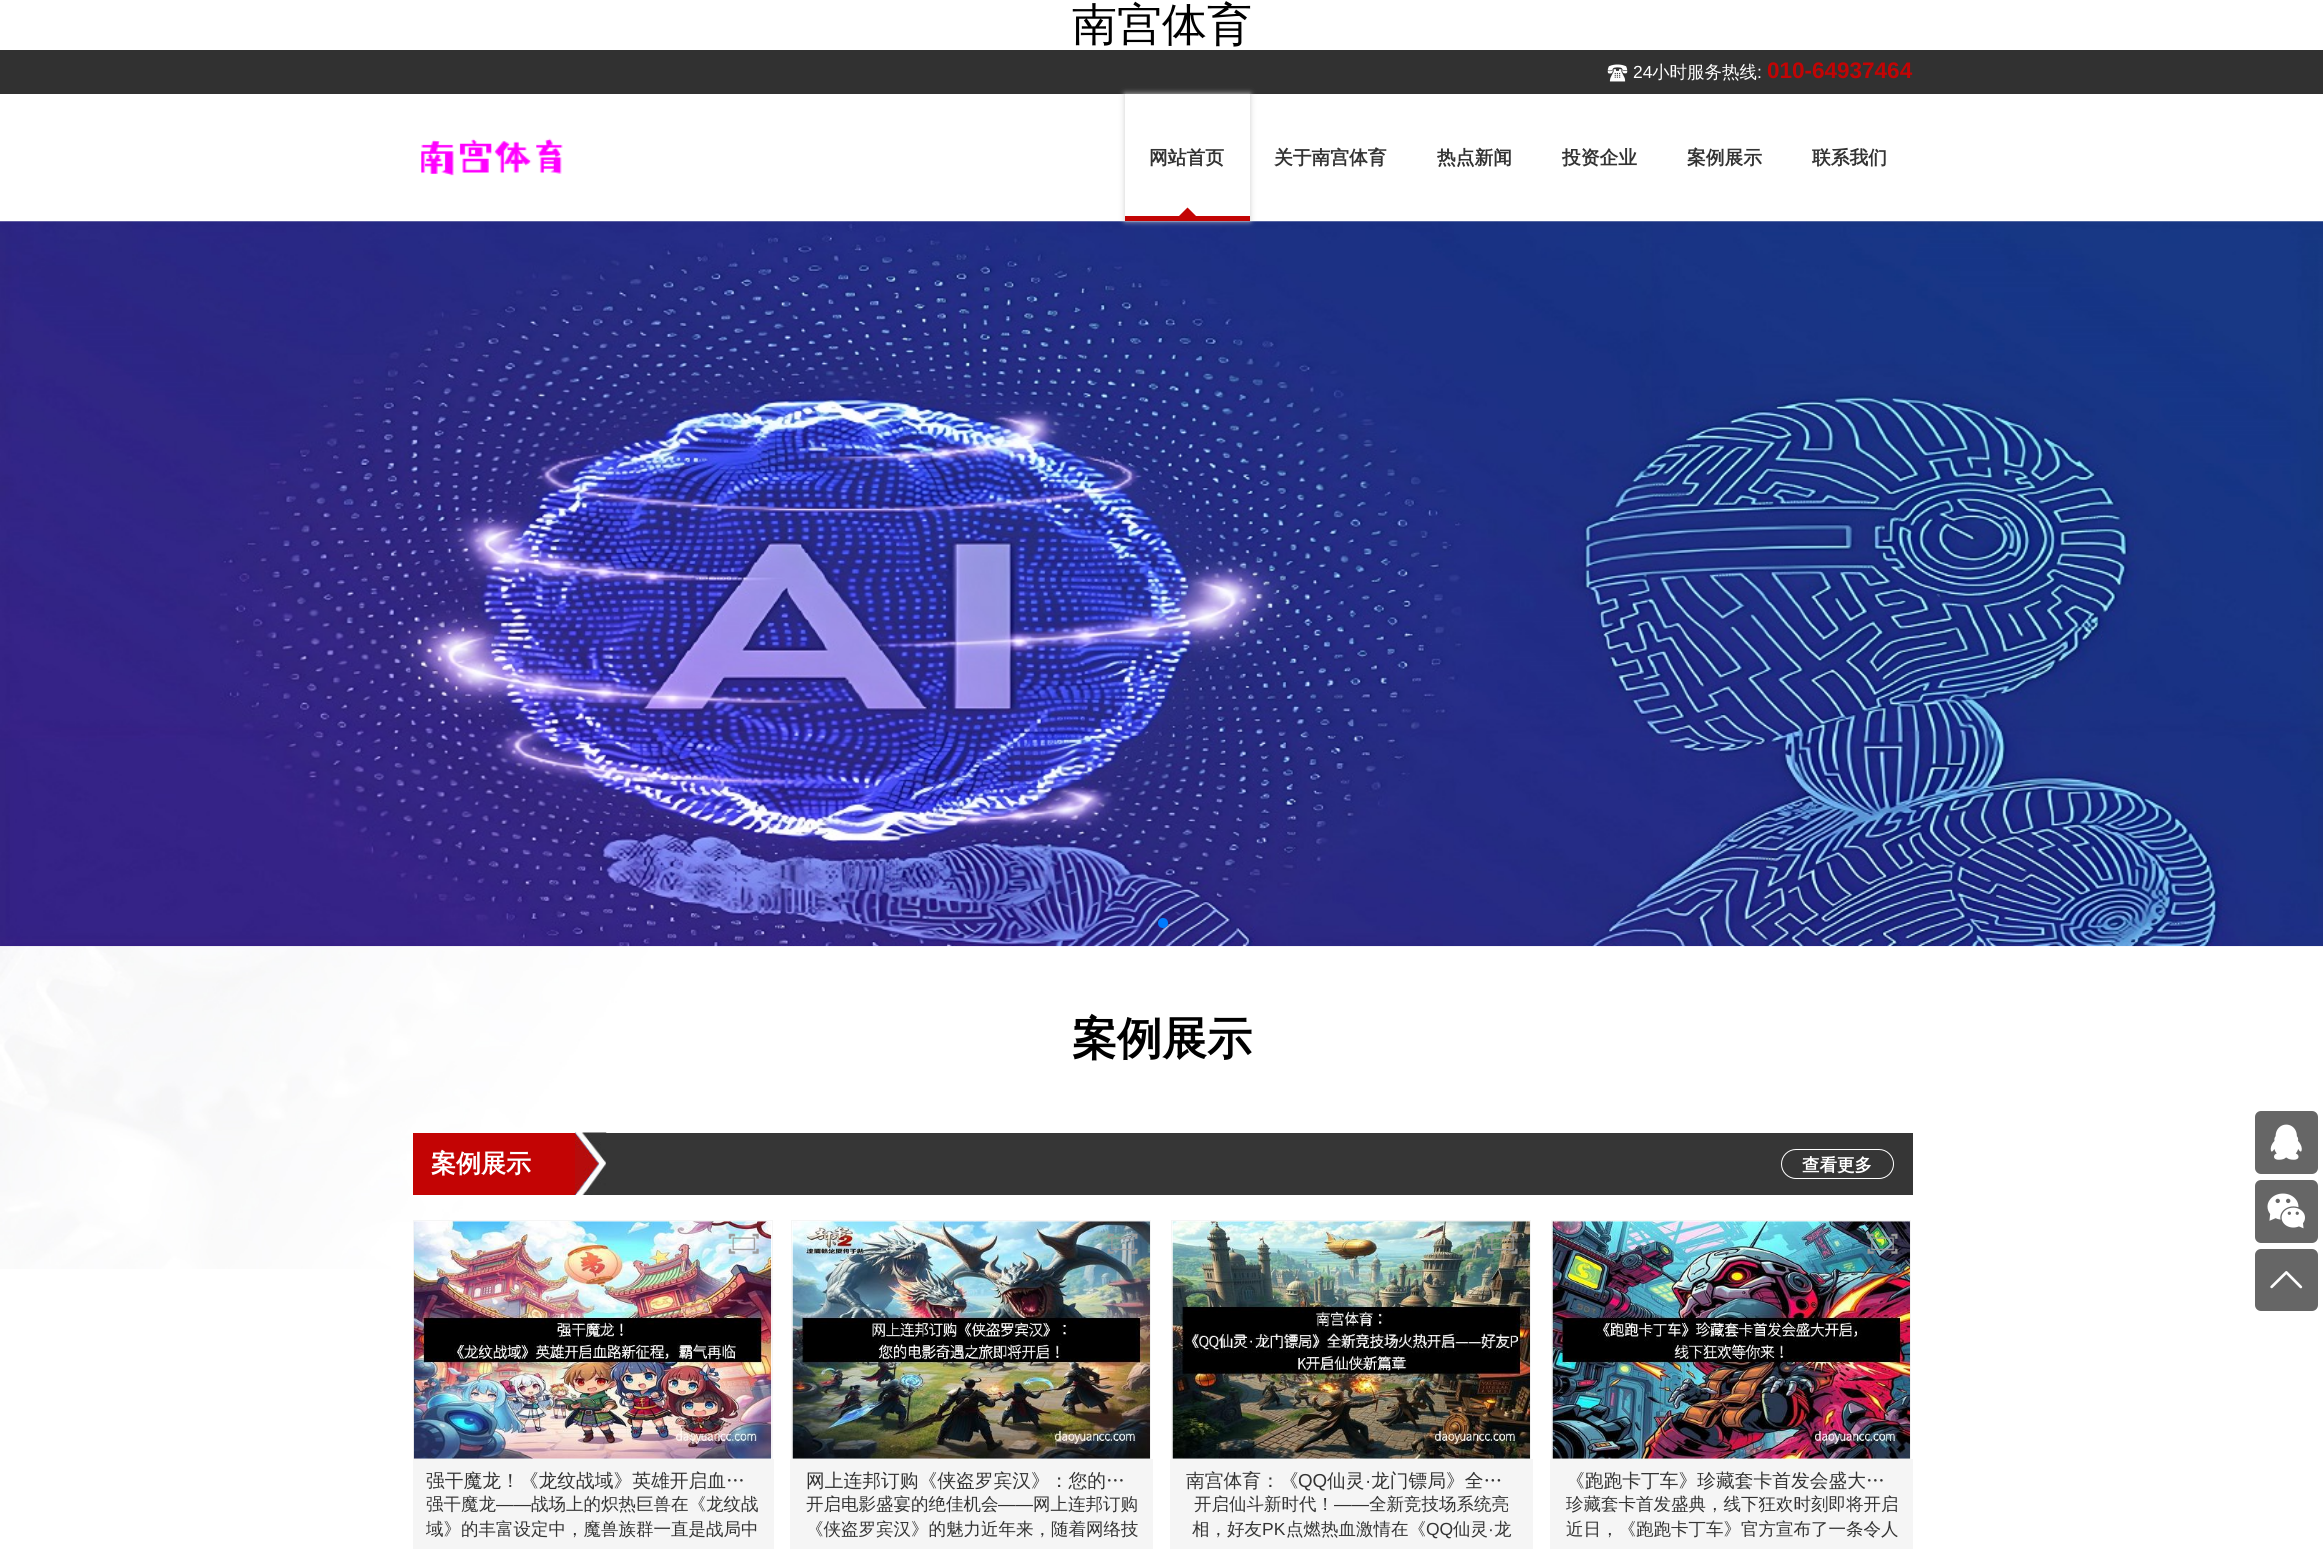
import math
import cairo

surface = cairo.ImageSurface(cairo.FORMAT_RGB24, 2323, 1549)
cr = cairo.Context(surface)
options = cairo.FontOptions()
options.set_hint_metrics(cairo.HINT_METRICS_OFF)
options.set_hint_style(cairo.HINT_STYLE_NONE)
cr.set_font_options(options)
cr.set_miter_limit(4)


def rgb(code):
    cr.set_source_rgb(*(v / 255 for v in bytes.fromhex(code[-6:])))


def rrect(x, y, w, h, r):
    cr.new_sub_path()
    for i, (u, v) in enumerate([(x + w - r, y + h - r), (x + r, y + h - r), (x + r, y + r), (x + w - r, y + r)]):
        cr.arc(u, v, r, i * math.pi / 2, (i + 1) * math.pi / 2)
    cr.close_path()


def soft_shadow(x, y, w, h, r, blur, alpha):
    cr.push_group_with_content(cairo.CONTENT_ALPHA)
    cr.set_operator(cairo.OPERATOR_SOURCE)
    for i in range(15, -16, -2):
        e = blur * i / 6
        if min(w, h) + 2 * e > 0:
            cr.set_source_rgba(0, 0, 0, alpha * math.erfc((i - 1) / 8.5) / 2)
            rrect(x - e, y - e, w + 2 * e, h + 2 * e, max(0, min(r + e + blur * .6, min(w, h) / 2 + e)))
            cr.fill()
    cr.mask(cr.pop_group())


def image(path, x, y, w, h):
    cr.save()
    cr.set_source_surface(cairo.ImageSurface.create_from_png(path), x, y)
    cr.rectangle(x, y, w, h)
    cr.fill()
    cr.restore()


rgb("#ffffff")
cr.paint()
rgb("#313131")
cr.rectangle(0, 50, 2323, 44)
cr.fill()
image("img/1.png", 1607, 64, 21, 18)
image("img/2.png", 421, 138, 142, 38)
image("img/3.png", 0, 221, 2323, 726)
cr.save()
cr.set_fill_rule(cairo.FILL_RULE_EVEN_ODD)
cr.new_path()
cr.move_to(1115, 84)
cr.line_to(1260, 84)
cr.line_to(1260, 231)
cr.line_to(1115, 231)
cr.close_path()
cr.move_to(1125, 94)
cr.line_to(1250, 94)
cr.line_to(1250, 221)
cr.line_to(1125, 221)
cr.close_path()
cr.clip()
rgb("#cccccc")
soft_shadow(1125, 94, 125, 127, 0, 3, 1)
cr.restore()
rgb("#c30404")
cr.new_path()
cr.move_to(1196, 216)
cr.line_to(1179, 216)
cr.line_to(1187.5, 207.5)
cr.close_path()
cr.fill()
cr.rectangle(1125, 216, 125, 5)
cr.fill()
rgb("#007aff")
cr.arc(1163, 923, 5, 0, 2 * math.pi)
cr.fill()
image("img/4.png", 0, 946, 2323, 323)
rgb("#c30404")
cr.rectangle(413, 1133, 162, 62)
cr.fill()
image("img/5.png", 575, 1132, 32, 63)
rgb("#363636")
cr.rectangle(606, 1133, 1307, 62)
cr.fill()
rrect(1781.5, 1149.5, 112, 29, 14.5)
rgb("#ffffff")
cr.set_line_width(1)
cr.stroke()
cr.rectangle(413.5, 1220.5, 359, 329)
rgb("#f5f5f5")
cr.stroke()
image("img/6.png", 413, 1221, 359, 238)
image("img/7.png", 728, 1233, 31, 21)
cr.rectangle(414, 1459, 360, 90)
cr.fill()
cr.rectangle(791.5, 1220.5, 359, 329)
cr.stroke()
image("img/8.png", 792, 1221, 358, 238)
image("img/9.png", 1107, 1233, 31, 21)
cr.rectangle(790, 1459, 360, 90)
cr.fill()
cr.rectangle(1151, 1459, 2, 90)
cr.fill()
cr.rectangle(1171.5, 1220.5, 359, 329)
cr.stroke()
image("img/10.png", 1172, 1221, 358, 238)
image("img/11.png", 1487, 1233, 31, 21)
cr.rectangle(1170, 1459, 360, 90)
cr.fill()
cr.rectangle(1531, 1459, 2, 90)
cr.fill()
cr.rectangle(1551.5, 1220.5, 359, 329)
cr.stroke()
image("img/12.png", 1552, 1221, 358, 238)
image("img/13.png", 1867, 1233, 31, 21)
cr.rectangle(1550, 1459, 360, 90)
cr.fill()
cr.rectangle(1911, 1459, 2, 90)
cr.fill()
rgb("#666666")
rrect(2255, 1111, 63, 63, 6)
cr.fill()
image("img/14.png", 2270, 1124, 32, 36)
rrect(2255, 1180, 63, 63, 6)
cr.fill()
image("img/15.png", 2267, 1193, 38, 36)
rrect(2255, 1249, 63, 62, 6)
cr.fill()
image("img/16.png", 2270, 1271, 33, 18)
cr.select_font_face("WenQuanYi Zen Hei Medium")
cr.set_font_size(45)
rgb("#000000")
cr.move_to(1072, 40)
cr.show_text("南宫体育")
cr.select_font_face("Liberation Sans")
cr.set_font_size(17.5)
rgb("#ffffff")
cr.move_to(1633, 78)
cr.show_text("24")
cr.select_font_face("WenQuanYi Zen Hei Medium")
cr.move_to(1652, 78)
cr.show_text("小时服务热线")
cr.select_font_face("Liberation Sans")
cr.move_to(1757, 78)
cr.show_text(":")
cr.select_font_face("Liberation Sans", cairo.FONT_SLANT_NORMAL, cairo.FONT_WEIGHT_BOLD)
cr.set_font_size(22.5)
rgb("#c30404")
cr.move_to(1767, 78)
cr.show_text("010-64937464")
cr.select_font_face("WenQuanYi Zen Hei", cairo.FONT_SLANT_NORMAL, cairo.FONT_WEIGHT_BOLD)
cr.set_font_size(18.75)
rgb("#333333")
for x, y, s in [
    (1149, 164, "网站首页"),
    (1274, 164, "关于南宫体育"),
    (1437, 164, "热点新闻"),
    (1562, 164, "投资企业"),
    (1687, 164, "案例展示"),
    (1812, 164, "联系我们"),
]:
    cr.move_to(x, y)
    cr.show_text(s)
cr.set_font_size(45)
rgb("#000000")
cr.move_to(1072, 1054)
cr.show_text("案例展示")
cr.set_font_size(25)
rgb("#ffffff")
cr.move_to(431, 1172)
cr.show_text("案例展示")
cr.set_font_size(17.5)
cr.move_to(1802, 1171)
cr.show_text("查看更多")
cr.select_font_face("WenQuanYi Zen Hei Medium")
cr.set_font_size(18.75)
rgb("#333333")
cr.move_to(426, 1487)
cr.show_text("强干魔龙！《龙纹战域》英雄开启血…")
cr.set_font_size(17.5)
cr.move_to(426, 1510)
cr.show_text("强干魔龙")
cr.select_font_face("Liberation Sans")
cr.move_to(496, 1510)
cr.show_text("——")
cr.select_font_face("WenQuanYi Zen Hei Medium")
cr.move_to(531, 1510)
cr.show_text("战场上的炽热巨兽在《龙纹战")
cr.move_to(426, 1535)
cr.show_text("域》的丰富设定中，魔兽族群一直是战局中")
cr.set_font_size(18.75)
cr.move_to(806, 1487)
cr.show_text("网上连邦订购《侠盗罗宾汉》：您的…")
cr.set_font_size(17.5)
cr.move_to(806, 1510)
cr.show_text("开启电影盛宴的绝佳机会")
cr.select_font_face("Liberation Sans")
cr.move_to(998, 1510)
cr.show_text("——")
cr.select_font_face("WenQuanYi Zen Hei Medium")
cr.move_to(1033, 1510)
cr.show_text("网上连邦订购")
cr.move_to(806, 1535)
cr.show_text("《侠盗罗宾汉》的魅力近年来，随着网络技")
cr.set_font_size(18.75)
cr.move_to(1186, 1487)
cr.show_text("南宫体育：《")
cr.select_font_face("Liberation Sans")
cr.move_to(1298, 1487)
cr.show_text("QQ")
cr.select_font_face("WenQuanYi Zen Hei Medium")
cr.move_to(1327, 1487)
cr.show_text("仙灵")
cr.select_font_face("Liberation Sans")
cr.move_to(1365, 1487)
cr.show_text("·")
cr.select_font_face("WenQuanYi Zen Hei Medium")
cr.move_to(1371, 1487)
cr.show_text("龙门镖局》全…")
cr.set_font_size(17.5)
cr.move_to(1194, 1510)
cr.show_text("开启仙斗新时代！")
cr.select_font_face("Liberation Sans")
cr.move_to(1334, 1510)
cr.show_text("——")
cr.select_font_face("WenQuanYi Zen Hei Medium")
cr.move_to(1369, 1510)
cr.show_text("全新竞技场系统亮")
cr.move_to(1192, 1535)
cr.show_text("相，好友")
cr.select_font_face("Liberation Sans")
cr.move_to(1262, 1535)
cr.show_text("PK")
cr.select_font_face("WenQuanYi Zen Hei Medium")
cr.move_to(1286, 1535)
cr.show_text("点燃热血激情在《")
cr.select_font_face("Liberation Sans")
cr.move_to(1426, 1535)
cr.show_text("QQ")
cr.select_font_face("WenQuanYi Zen Hei Medium")
cr.move_to(1453, 1535)
cr.show_text("仙灵")
cr.select_font_face("Liberation Sans")
cr.move_to(1488, 1535)
cr.show_text("·")
cr.select_font_face("WenQuanYi Zen Hei Medium")
cr.move_to(1494, 1535)
cr.show_text("龙")
cr.set_font_size(18.75)
cr.move_to(1566, 1487)
cr.show_text("《跑跑卡丁车》珍藏套卡首发会盛大…")
cr.set_font_size(17.5)
cr.move_to(1566, 1510)
cr.show_text("珍藏套卡首发盛典，线下狂欢时刻即将开启")
cr.move_to(1566, 1535)
cr.show_text("近日，《跑跑卡丁车》官方宣布了一条令人")
surface.write_to_png("page.png")
